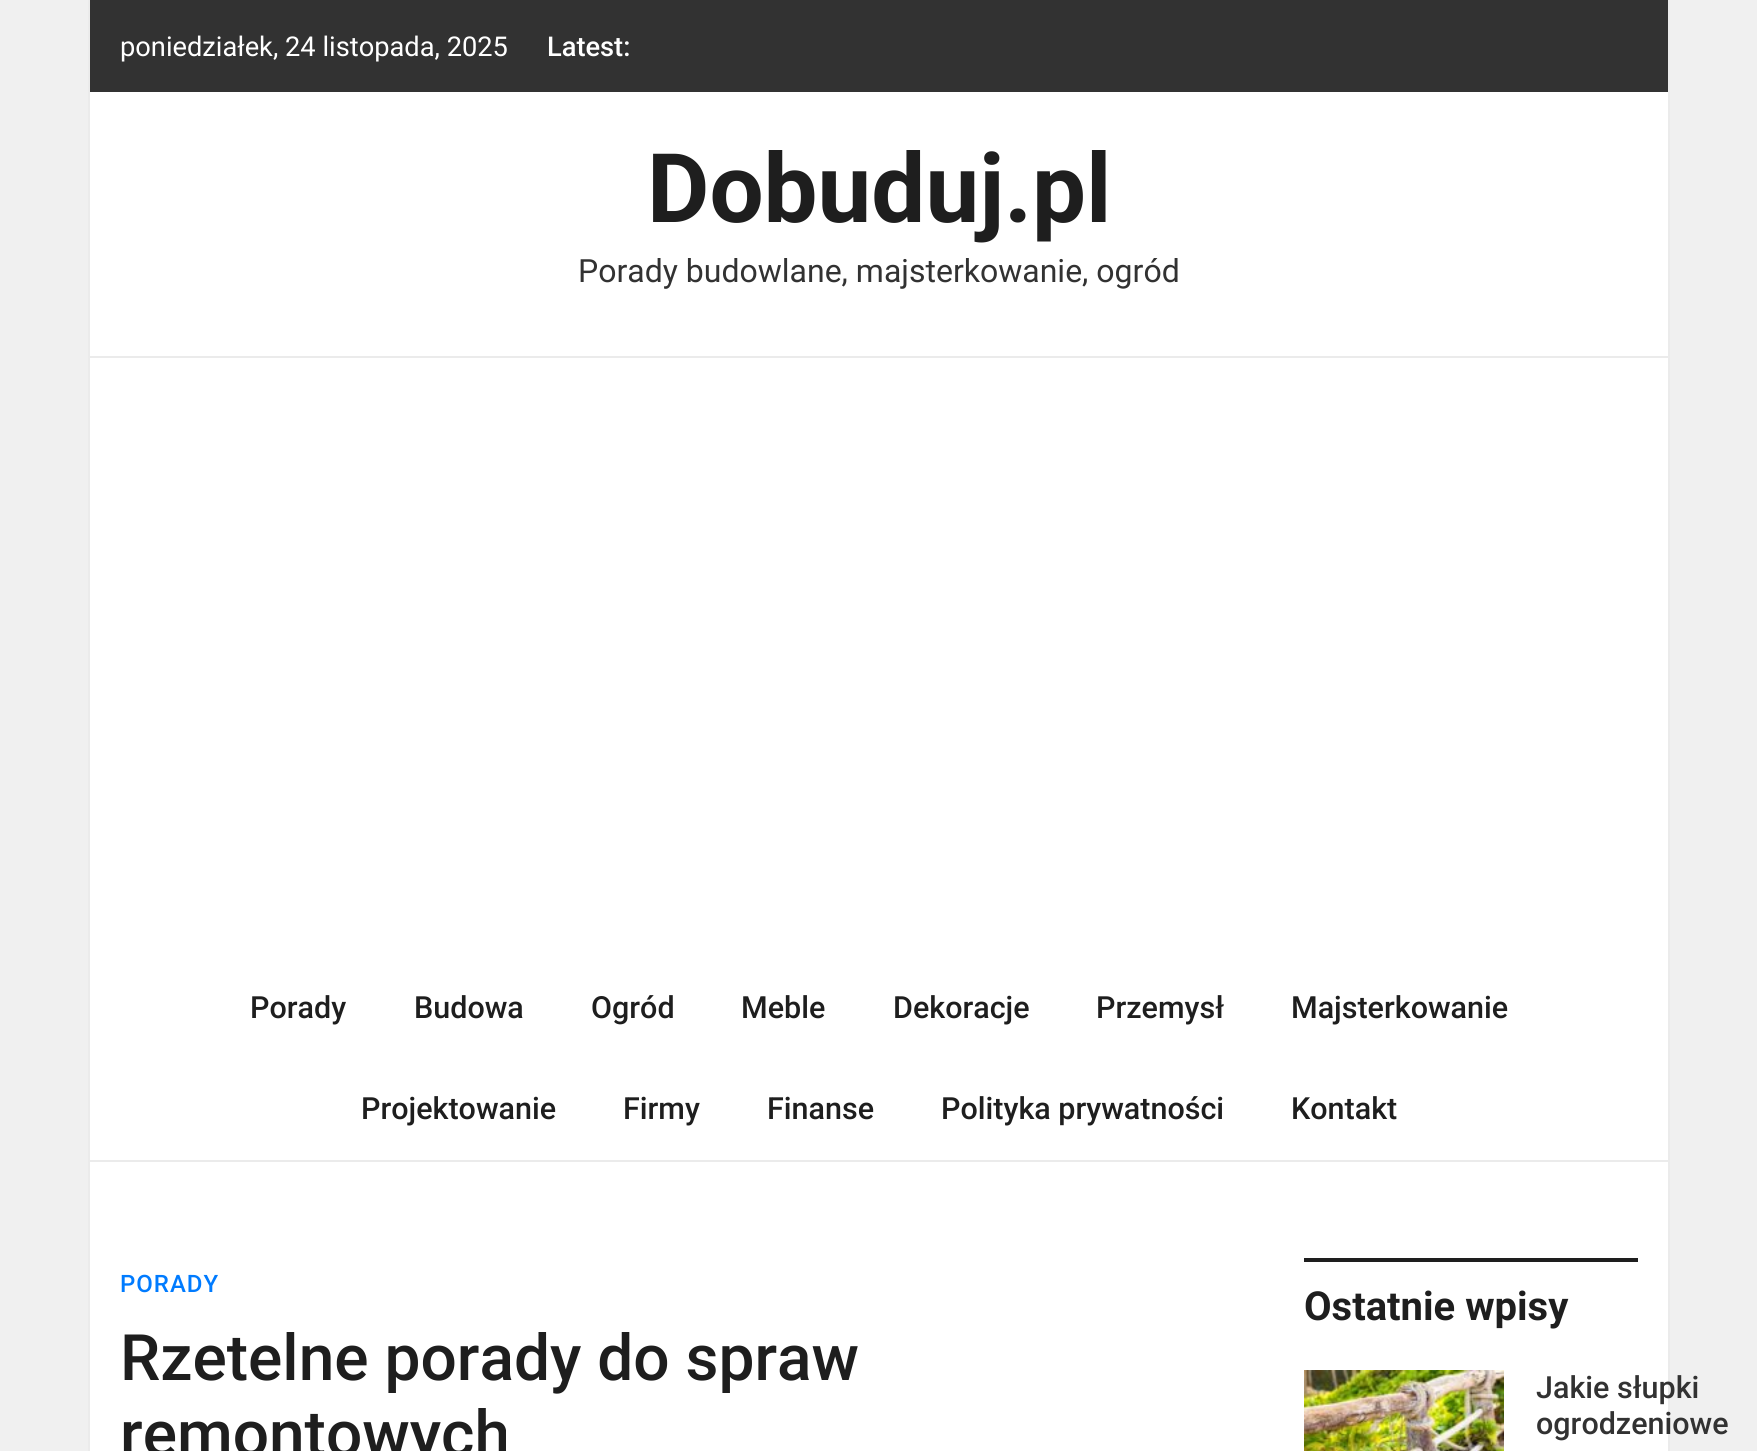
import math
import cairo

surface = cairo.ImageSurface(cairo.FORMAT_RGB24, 1757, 1451)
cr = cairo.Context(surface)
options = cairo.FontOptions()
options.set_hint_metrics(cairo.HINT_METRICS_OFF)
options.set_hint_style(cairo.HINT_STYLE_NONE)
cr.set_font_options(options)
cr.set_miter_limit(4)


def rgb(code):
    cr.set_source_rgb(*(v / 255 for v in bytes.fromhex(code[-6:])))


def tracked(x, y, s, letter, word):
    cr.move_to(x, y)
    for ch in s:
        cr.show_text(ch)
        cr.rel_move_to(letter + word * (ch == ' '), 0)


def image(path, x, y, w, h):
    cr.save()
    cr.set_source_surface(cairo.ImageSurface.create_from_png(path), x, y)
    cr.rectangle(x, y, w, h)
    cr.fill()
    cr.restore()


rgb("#f0f0f0")
cr.paint()
for x, y, w, h, color in [
    (90, 92, 1578, 1359, "#ffffff"),
    (1668, 0, 2, 1451, "#ebebeb"),
    (88, 0, 2, 1451, "#ebebeb"),
    (90, 0, 1578, 92, "#323232"),
    (90, 356, 1578, 2, "#ebebeb"),
    (90, 1160, 1578, 2, "#ebebeb"),
    (1304, 1258, 334, 4, "#1e1e1e"),
]:
    rgb(color)
    cr.rectangle(x, y, w, h)
    cr.fill()
image("img/1.png", 1304, 1370, 200, 81)
cr.select_font_face("Roboto")
cr.set_font_size(27.25)
rgb("#ffffff")
cr.move_to(120, 56)
cr.show_text("poniedziałek, 24 listopada, 2025")
cr.select_font_face("Roboto Medium")
cr.move_to(547, 56)
cr.show_text("Latest:")
cr.select_font_face("Roboto", cairo.FONT_SLANT_NORMAL, cairo.FONT_WEIGHT_BOLD)
cr.set_font_size(96)
rgb("#1e1e1e")
cr.move_to(647, 222)
cr.show_text("Dobuduj.pl")
cr.select_font_face("Roboto")
cr.set_font_size(32)
rgb("#323232")
cr.move_to(578, 282)
cr.show_text("Porady budowlane, majsterkowanie, ogród")
cr.select_font_face("Roboto Medium")
cr.set_font_size(30.5)
rgb("#1e1e1e")
for x, y, s in [
    (250, 1018, "Porady"),
    (414, 1018, "Budowa"),
    (591, 1018, "Ogród"),
    (741, 1018, "Meble"),
    (893, 1018, "Dekoracje"),
    (1096, 1018, "Przemysł"),
    (1291, 1018, "Majsterkowanie"),
    (361, 1119, "Projektowanie"),
    (623, 1119, "Firmy"),
    (767, 1119, "Finanse"),
    (941, 1119, "Polityka prywatności"),
    (1291, 1119, "Kontakt"),
]:
    cr.move_to(x, y)
    cr.show_text(s)
cr.set_font_size(24)
rgb("#007bff")
tracked(120, 1292, "PORADY", 1, 0)
cr.set_font_size(64)
rgb("#1e1e1e")
cr.move_to(120, 1380)
cr.show_text("Rzetelne porady do spraw")
cr.move_to(120, 1456)
cr.show_text("remontowych")
cr.select_font_face("Roboto", cairo.FONT_SLANT_NORMAL, cairo.FONT_WEIGHT_BOLD)
cr.set_font_size(40)
cr.move_to(1304, 1320)
cr.show_text("Ostatnie wpisy")
cr.select_font_face("Roboto Medium")
cr.set_font_size(30.5)
rgb("#323232")
cr.move_to(1536, 1398)
cr.show_text("Jakie słupki")
cr.move_to(1536, 1434)
cr.show_text("ogrodzeniowe")
surface.write_to_png("page.png")
